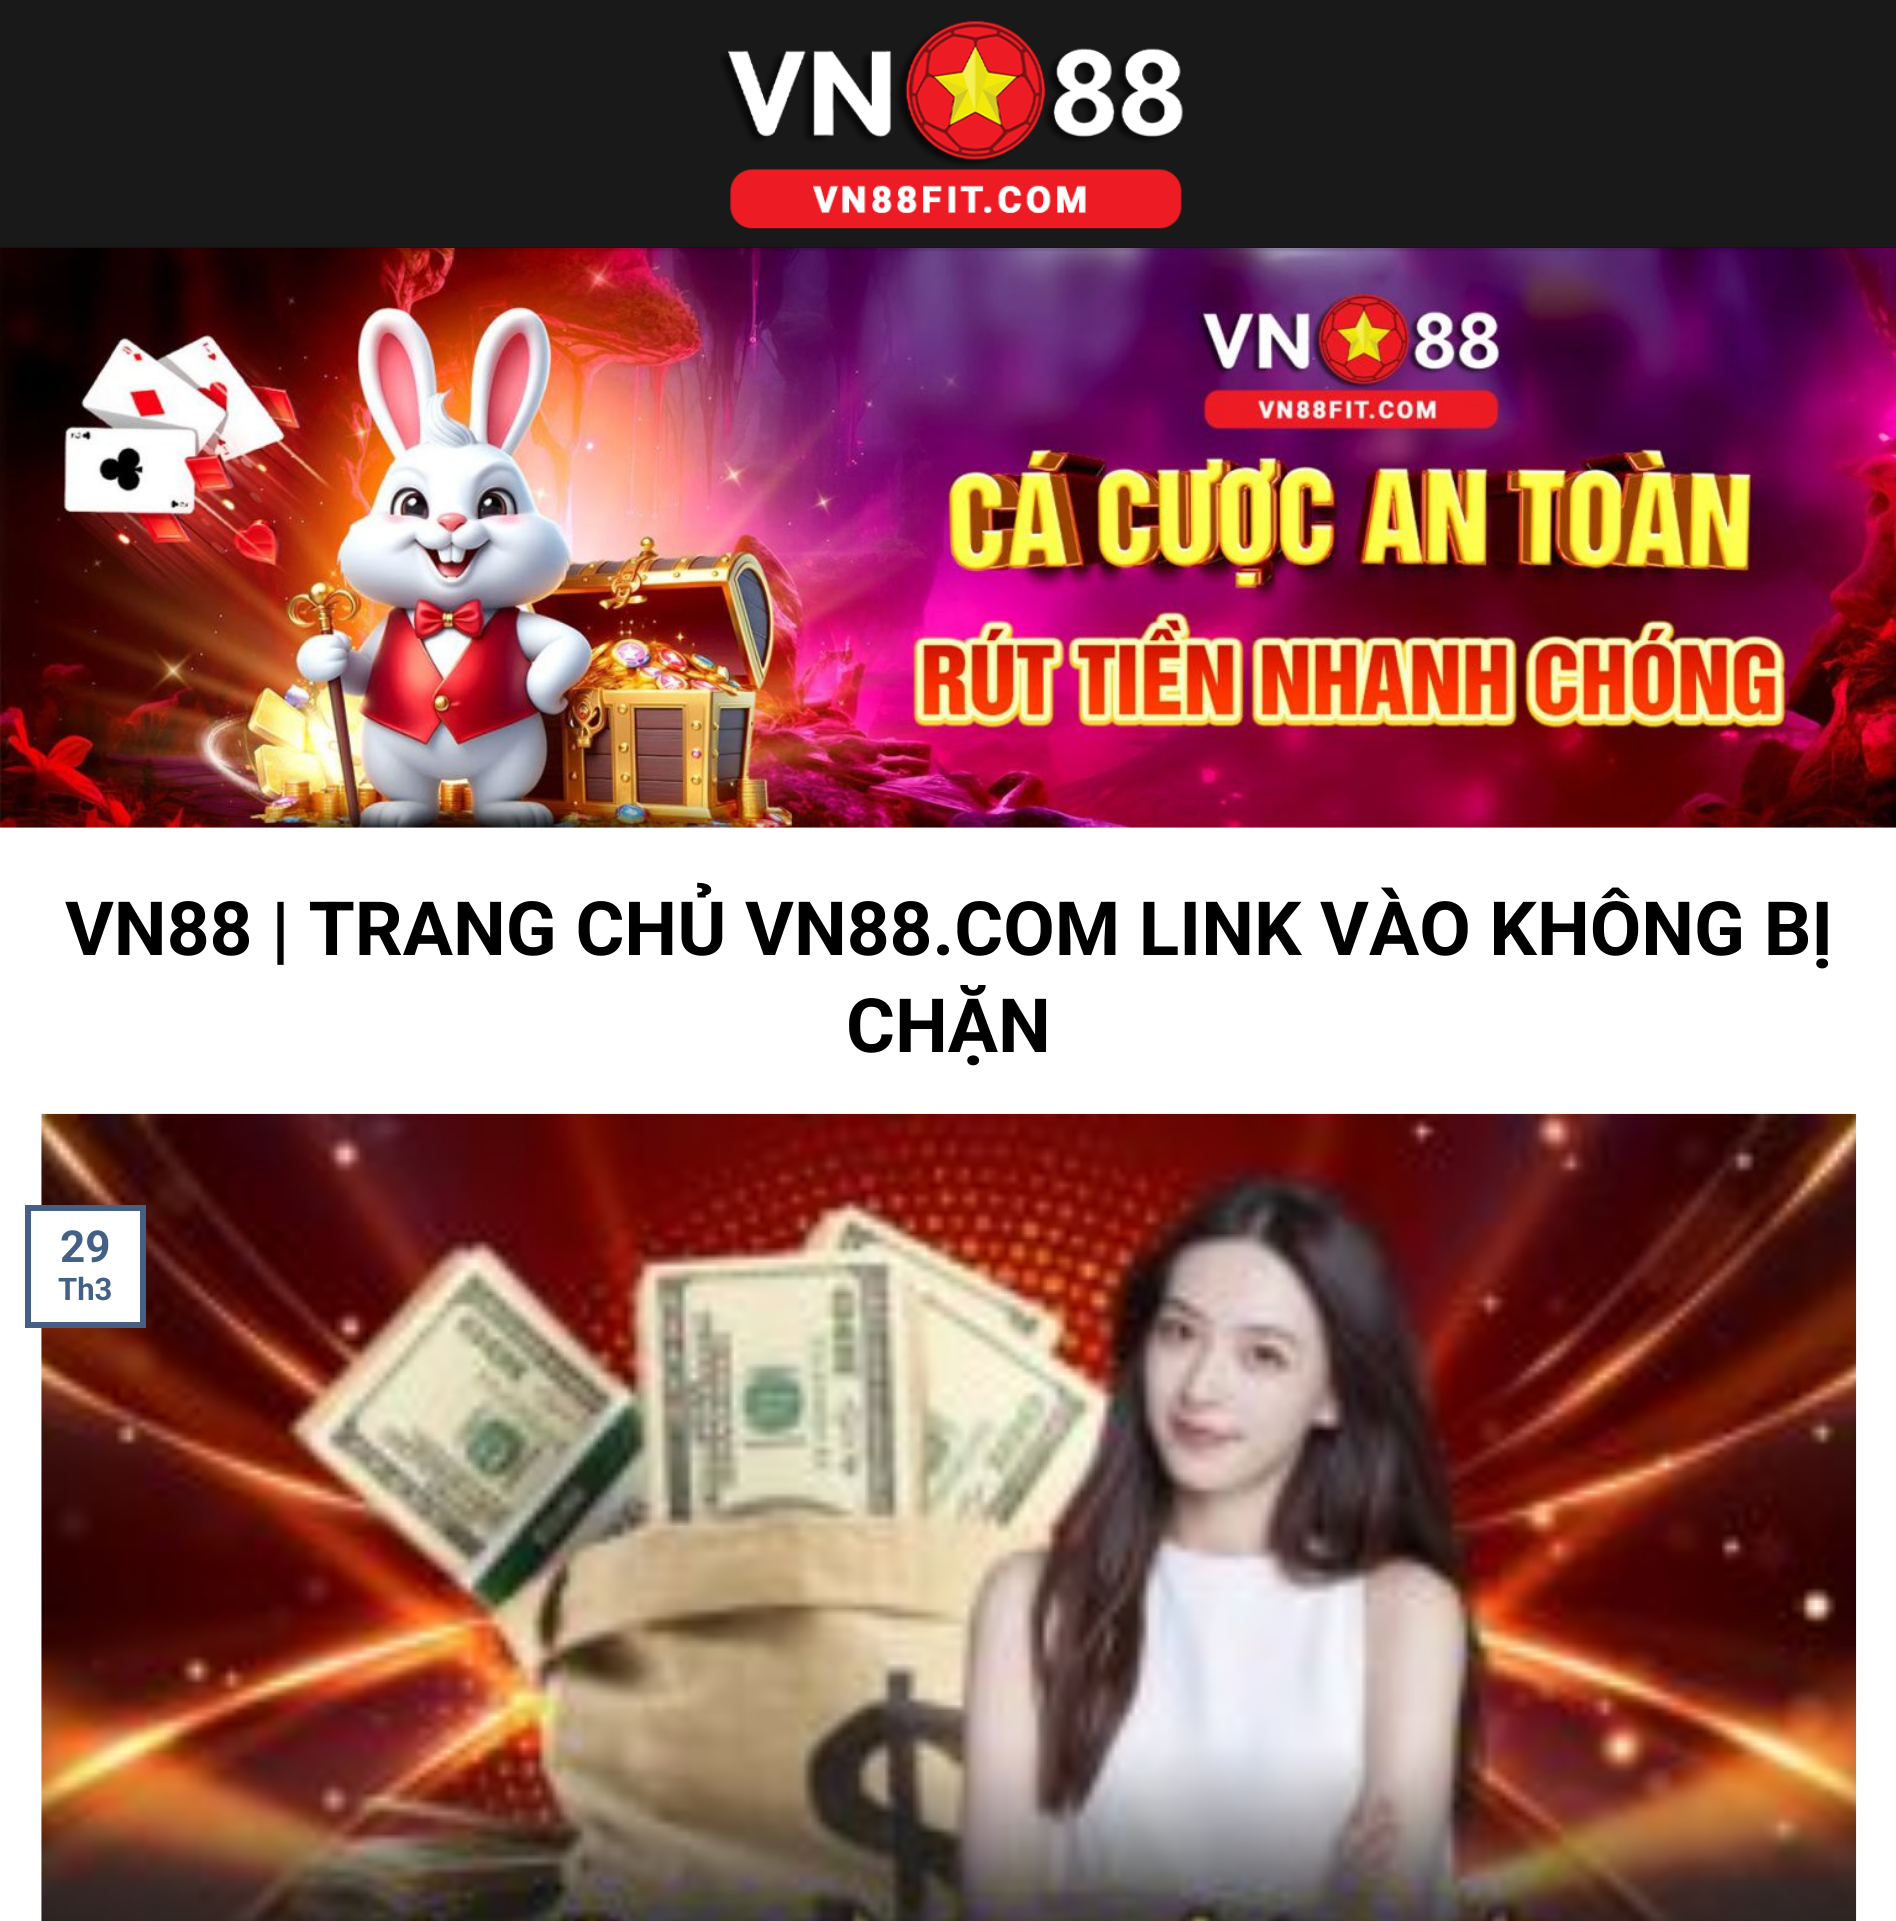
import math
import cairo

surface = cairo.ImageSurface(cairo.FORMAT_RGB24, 1896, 1921)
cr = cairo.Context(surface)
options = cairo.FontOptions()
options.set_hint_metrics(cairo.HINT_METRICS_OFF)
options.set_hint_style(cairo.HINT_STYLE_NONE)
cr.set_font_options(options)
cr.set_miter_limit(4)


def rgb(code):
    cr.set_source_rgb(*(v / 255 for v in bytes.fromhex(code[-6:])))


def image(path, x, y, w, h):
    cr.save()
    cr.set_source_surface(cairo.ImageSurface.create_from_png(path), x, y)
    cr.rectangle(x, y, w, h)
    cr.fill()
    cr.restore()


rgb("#ffffff")
cr.paint()
image("img/2.png", 0, 247, 1896, 581)
cr.set_source_rgba(0, 0, 0, 0.9)
cr.rectangle(0, 0, 1896, 248)
cr.fill()
image("img/1.png", 720, 20, 463, 209)
cr.set_source_rgba(0, 0, 0, 0.1)
cr.rectangle(139, 248, 1717, 3)
cr.fill()
image("img/3.png", 41, 1113, 1816, 808)
rgb("#ffffff")
cr.rectangle(41, 1211, 99, 111)
cr.fill()
cr.rectangle(28, 1208, 115, 117)
rgb("#446084")
cr.set_line_width(6)
cr.stroke()
cr.select_font_face("Roboto", cairo.FONT_SLANT_NORMAL, cairo.FONT_WEIGHT_BOLD)
cr.set_font_size(74.8)
rgb("#000000")
cr.move_to(65, 955)
cr.show_text("VN88 | TRANG CHỦ VN88.COM LINK VÀO KHÔNG BỊ")
cr.move_to(846, 1052)
cr.show_text("CHẶN")
cr.set_font_size(44)
rgb("#446084")
cr.move_to(60, 1262)
cr.show_text("29")
cr.set_font_size(31)
cr.move_to(58, 1300)
cr.show_text("Th3")
surface.write_to_png("page.png")
